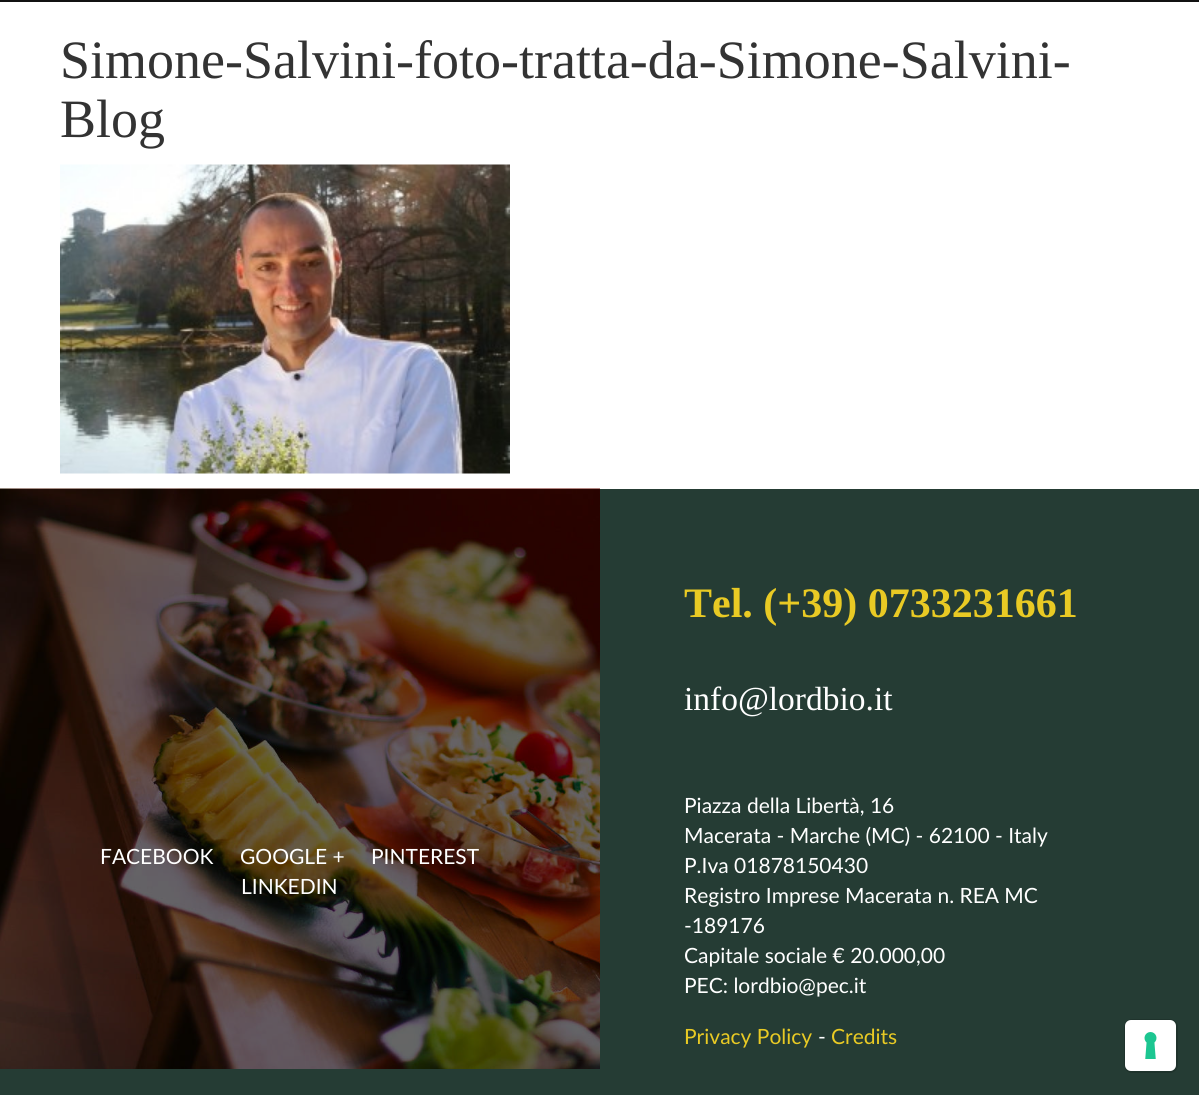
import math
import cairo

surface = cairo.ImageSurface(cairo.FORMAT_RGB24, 1199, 1095)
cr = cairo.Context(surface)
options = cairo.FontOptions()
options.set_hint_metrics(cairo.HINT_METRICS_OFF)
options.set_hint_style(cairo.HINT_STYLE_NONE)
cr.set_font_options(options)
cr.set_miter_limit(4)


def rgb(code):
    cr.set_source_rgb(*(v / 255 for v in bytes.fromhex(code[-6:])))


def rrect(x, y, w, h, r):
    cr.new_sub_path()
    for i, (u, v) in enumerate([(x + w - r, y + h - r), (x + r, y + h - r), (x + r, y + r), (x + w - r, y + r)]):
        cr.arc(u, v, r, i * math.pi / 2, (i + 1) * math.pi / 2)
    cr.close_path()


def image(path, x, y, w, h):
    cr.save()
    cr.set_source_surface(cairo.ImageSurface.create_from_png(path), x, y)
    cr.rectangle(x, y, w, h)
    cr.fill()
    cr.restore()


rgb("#ffffff")
cr.paint()
rgb("#111111")
cr.rectangle(0, 0, 1199, 2)
cr.fill()
image("img/1.png", 60, 164, 450, 310)
rgb("#253c34")
cr.rectangle(0, 489, 1199, 606)
cr.fill()
image("img/2.png", 0, 488, 600, 581)
rrect(1125, 1020, 52, 52, 7)
rgb("#1f332c")
cr.stroke()
rgb("#ffffff")
rrect(1125, 1020, 51, 51, 6)
cr.fill()
image("img/3.png", 1144, 1032, 13, 27)
cr.select_font_face("Liberation Serif")
cr.set_font_size(54)
rgb("#333333")
cr.move_to(60, 78)
cr.show_text("Simone-Salvini-foto-tratta-da-Simone-Salvini-")
cr.move_to(60, 137)
cr.show_text("Blog")
cr.select_font_face("Lato")
cr.set_font_size(21)
rgb("#ffffff")
for x, y, s in [
    (100, 864, "FACEBOOK"),
    (240, 864, "GOOGLE +"),
    (371, 864, "PINTEREST"),
    (241, 894, "LINKEDIN"),
]:
    cr.move_to(x, y)
    cr.show_text(s)
cr.select_font_face("Liberation Serif", cairo.FONT_SLANT_NORMAL, cairo.FONT_WEIGHT_BOLD)
cr.set_font_size(42)
rgb("#e9ca24")
cr.move_to(684, 617)
cr.show_text("Tel. (+39) 0733231661")
cr.select_font_face("Liberation Serif")
cr.set_font_size(33.5)
rgb("#ffffff")
cr.move_to(684, 710)
cr.show_text("info@lordbio.it")
cr.select_font_face("Lato")
cr.set_font_size(21)
for x, y, s in [
    (684, 813, "Piazza della Libertà, 16"),
    (684, 843, "Macerata - Marche (MC) - 62100 - Italy"),
    (684, 873, "P.Iva 01878150430"),
    (684, 903, "Registro Imprese Macerata n. REA MC"),
    (684, 933, "-189176"),
    (684, 963, "Capitale sociale € 20.000,00"),
    (684, 993, "PEC: lordbio@pec.it"),
]:
    cr.move_to(x, y)
    cr.show_text(s)
rgb("#e9ca24")
cr.move_to(684, 1044)
cr.show_text("Privacy Policy")
rgb("#ffffff")
cr.move_to(818, 1044)
cr.show_text("-")
rgb("#e9ca24")
cr.move_to(831, 1044)
cr.show_text("Credits")
surface.write_to_png("page.png")
